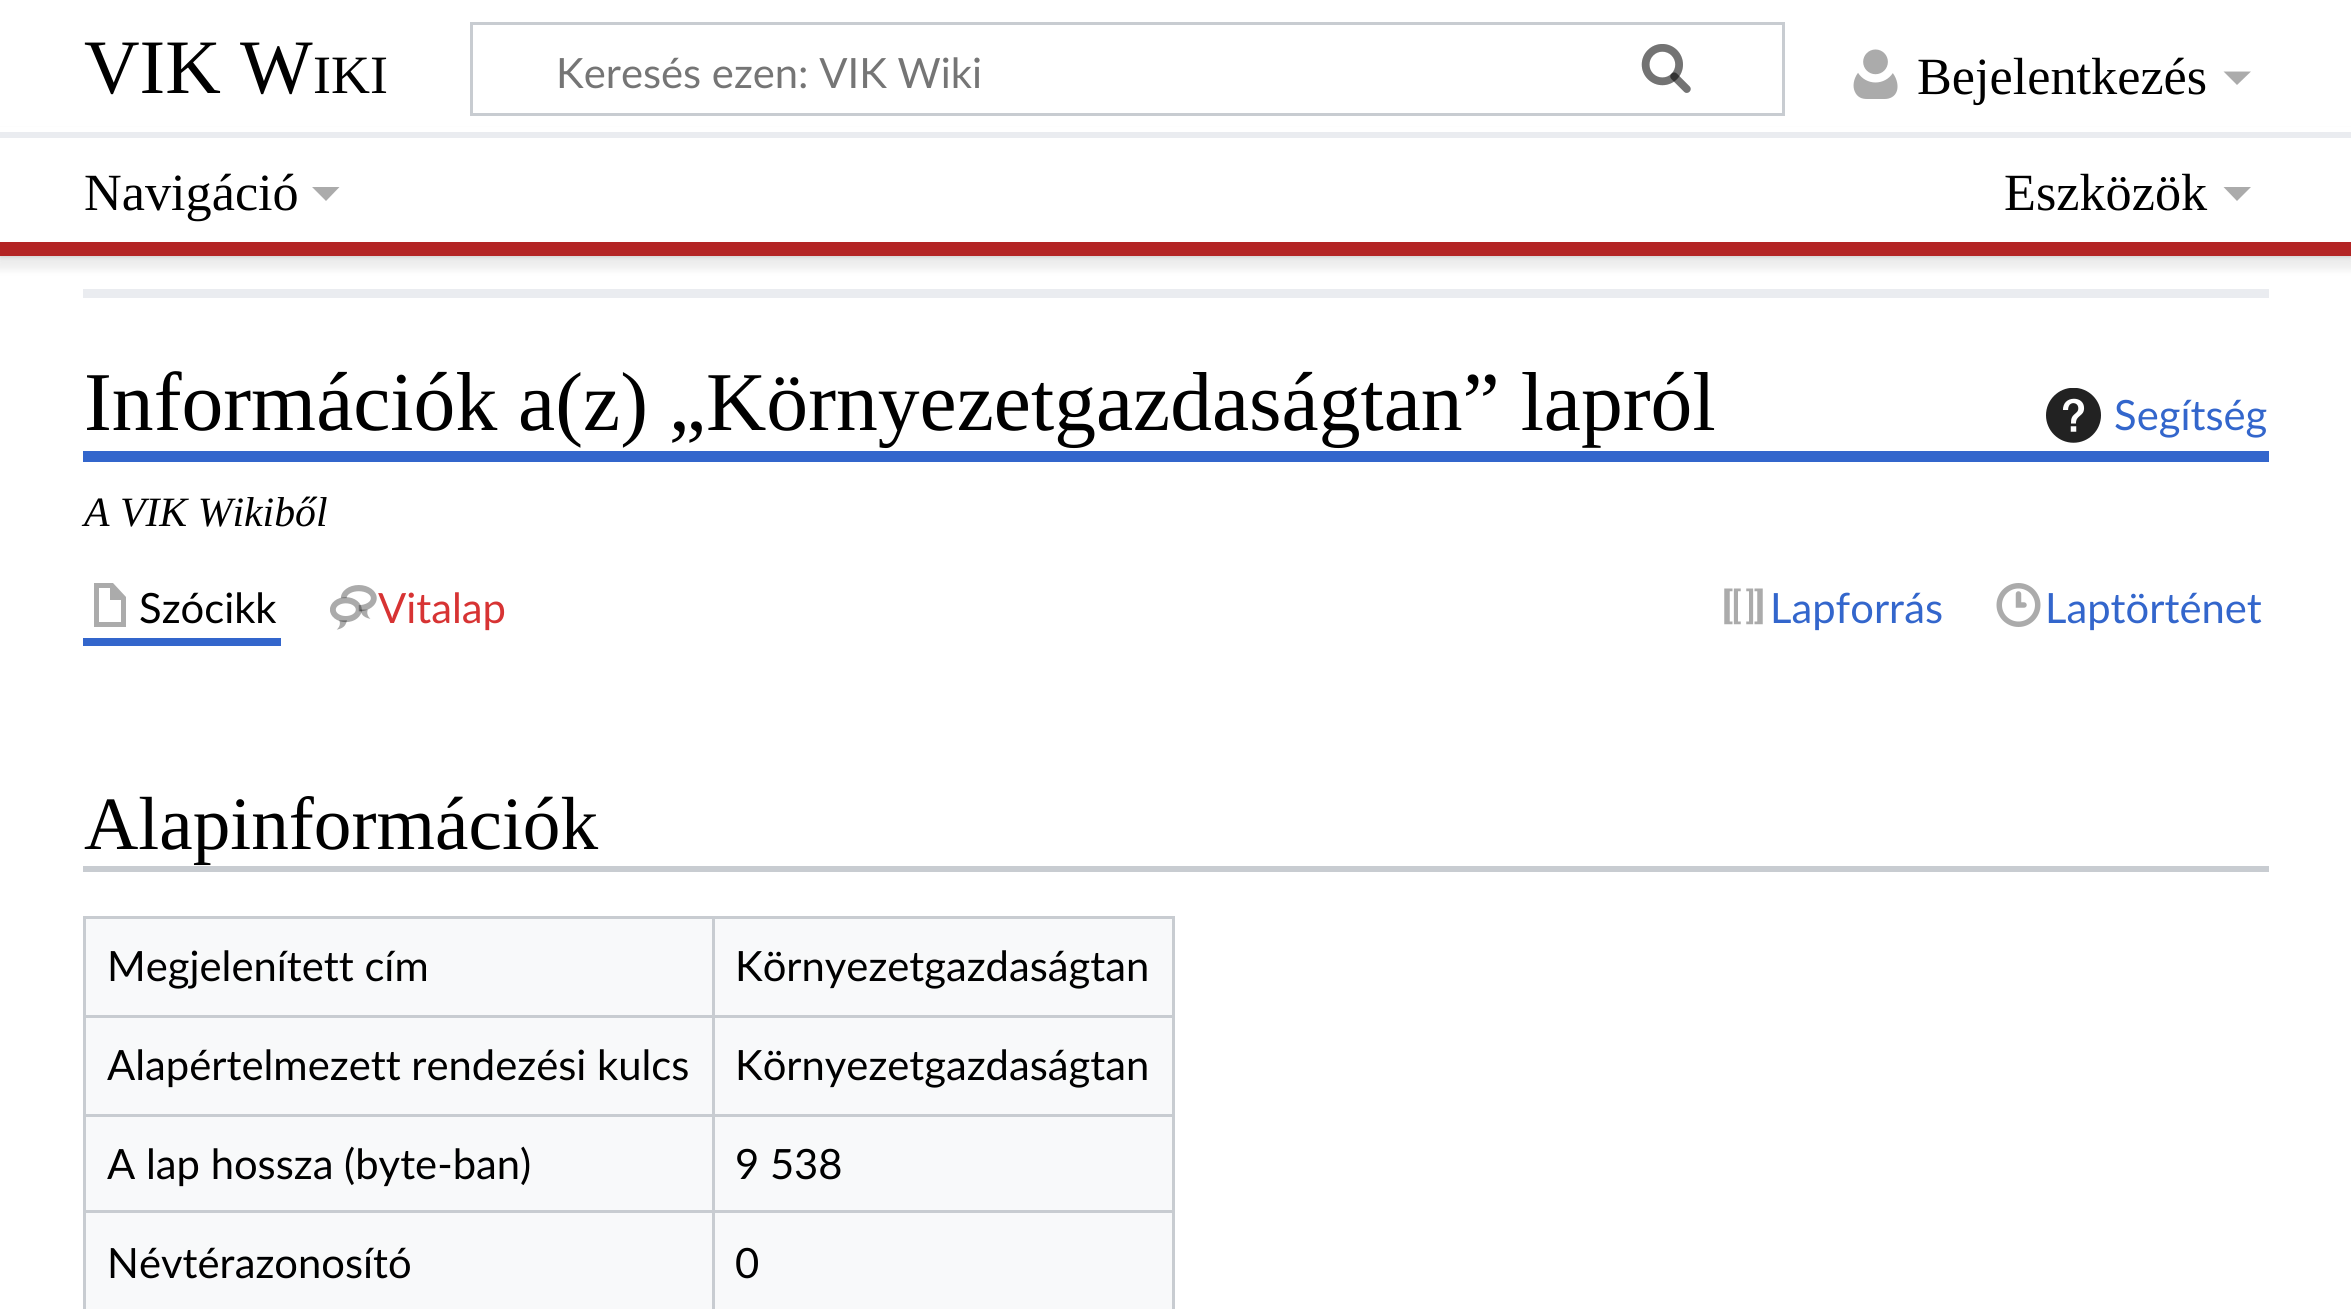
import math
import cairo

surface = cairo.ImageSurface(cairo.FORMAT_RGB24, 2351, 1309)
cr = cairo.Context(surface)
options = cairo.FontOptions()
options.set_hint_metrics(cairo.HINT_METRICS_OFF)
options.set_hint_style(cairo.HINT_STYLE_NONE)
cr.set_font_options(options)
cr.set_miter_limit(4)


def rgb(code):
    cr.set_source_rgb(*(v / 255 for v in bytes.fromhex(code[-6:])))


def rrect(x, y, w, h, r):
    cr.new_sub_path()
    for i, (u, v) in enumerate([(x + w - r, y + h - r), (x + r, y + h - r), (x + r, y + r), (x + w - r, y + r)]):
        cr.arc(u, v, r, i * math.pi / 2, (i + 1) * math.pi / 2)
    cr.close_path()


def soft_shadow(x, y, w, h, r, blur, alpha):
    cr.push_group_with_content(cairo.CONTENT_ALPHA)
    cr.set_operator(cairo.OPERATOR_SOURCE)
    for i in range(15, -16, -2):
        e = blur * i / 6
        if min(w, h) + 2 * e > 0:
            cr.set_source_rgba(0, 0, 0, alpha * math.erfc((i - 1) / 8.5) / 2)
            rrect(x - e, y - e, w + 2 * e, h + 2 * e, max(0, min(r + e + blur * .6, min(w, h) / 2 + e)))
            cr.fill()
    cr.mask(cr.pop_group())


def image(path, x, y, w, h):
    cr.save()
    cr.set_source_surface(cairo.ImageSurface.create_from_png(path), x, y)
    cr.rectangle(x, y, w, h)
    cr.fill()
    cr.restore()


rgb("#ffffff")
cr.paint()
rgb("#000000")
soft_shadow(0, 132, 2351, 124, 0, 3, 0.2)
soft_shadow(-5, 135, 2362, 135, 0, 4, 0.07)
rgb("#ffffff")
cr.rectangle(0, 127, 2351, 5)
cr.fill()
cr.rectangle(471.5, 23.5, 1312, 91)
rgb("#c8ccd1")
cr.set_line_width(3)
cr.stroke()
image("img/1.png", 1641, 44, 50, 49)
image("img/2.png", 1641, 44, 50, 49)
image("img/3.png", 1853, 49, 45, 50)
rgb("#ababab")
cr.new_path()
cr.move_to(2251, 71.5)
cr.line_to(2237, 85)
cr.line_to(2223.5, 71.5)
cr.close_path()
cr.fill()
for x, y, w, h, color in [
    (0, 138, 2351, 104, "#ffffff"),
    (0, 132, 2351, 6, "#eaecf0"),
    (0, 242, 2351, 14, "#b32424"),
]:
    rgb(color)
    cr.rectangle(x, y, w, h)
    cr.fill()
rgb("#ababab")
cr.new_path()
cr.move_to(339.5, 187)
cr.line_to(326, 201)
cr.line_to(312, 187)
cr.close_path()
cr.fill()
cr.new_path()
cr.move_to(2251, 187)
cr.line_to(2237, 201)
cr.line_to(2223.5, 187)
cr.close_path()
cr.fill()
for x, y, w, h, color in [
    (83, 289, 2186, 3, "#eaecf0"),
    (2266, 289, 3, 8, "#eaecf0"),
    (83, 292, 2186, 6, "#eaecf0"),
    (83, 451, 2186, 11, "#3366cc"),
]:
    rgb(color)
    cr.rectangle(x, y, w, h)
    cr.fill()
image("img/4.png", 2046, 388, 55, 55)
cr.rectangle(83, 638, 198, 8)
cr.fill()
rgb("#ababab")
cr.new_path()
cr.move_to(94, 583)
cr.line_to(94, 627)
cr.line_to(126, 627)
cr.line_to(126, 597)
cr.line_to(113, 583)
cr.close_path()
cr.move_to(99, 588)
cr.line_to(110, 588)
cr.line_to(110, 600)
cr.line_to(121, 600)
cr.line_to(121, 622)
cr.line_to(99, 622)
cr.close_path()
cr.fill()
image("img/5.png", 330, 585, 47, 45)
image("img/6.png", 1724, 588, 39, 37)
image("img/7.png", 1996, 583, 45, 44)
for x, y, w, h, color in [
    (83, 866, 2186, 6, "#c8ccd1"),
    (86, 919, 1086, 390, "#f8f9fa"),
    (83, 916, 1091, 3, "#c8ccd1"),
    (1172, 916, 3, 393, "#c8ccd1"),
    (83, 916, 3, 393, "#c8ccd1"),
    (712, 1015, 462, 3, "#c8ccd1"),
    (712, 1114, 462, 3, "#c8ccd1"),
    (712, 1210, 462, 3, "#c8ccd1"),
    (712, 1210, 3, 99, "#c8ccd1"),
    (83, 1210, 632, 3, "#c8ccd1"),
    (712, 1114, 3, 99, "#c8ccd1"),
    (83, 1114, 632, 3, "#c8ccd1"),
    (712, 1015, 3, 102, "#c8ccd1"),
    (83, 1015, 632, 3, "#c8ccd1"),
    (712, 916, 3, 102, "#c8ccd1"),
]:
    rgb(color)
    cr.rectangle(x, y, w, h)
    cr.fill()
cr.select_font_face("Liberation Serif")
cr.set_font_size(77)
rgb("#000000")
cr.move_to(84, 93)
cr.show_text("VIK W")
cr.set_font_size(54)
cr.move_to(313, 93)
cr.show_text("IKI")
cr.select_font_face("Lato")
cr.set_font_size(41.75)
rgb("#757575")
cr.move_to(556, 88)
cr.show_text("Keresés ezen: VIK Wiki")
cr.select_font_face("Liberation Serif")
cr.set_font_size(52.25)
rgb("#000000")
for x, y, s in [
    (1917, 94, "Bejelentkezés"),
    (84, 210, "Navigáció"),
    (2004, 210, "Eszközök"),
]:
    cr.move_to(x, y)
    cr.show_text(s)
cr.set_font_size(83.6)
cr.move_to(84, 430)
cr.show_text("Információk a(z) „Környezetgazdaságtan” lapról")
cr.select_font_face("Lato")
cr.set_font_size(41.75)
rgb("#3366cc")
cr.move_to(2114, 430)
cr.show_text("Segítség")
cr.select_font_face("Liberation Serif", cairo.FONT_SLANT_ITALIC)
rgb("#000000")
cr.move_to(84, 526)
cr.show_text("A VIK Wikiből")
cr.select_font_face("Lato")
cr.move_to(139, 623)
cr.show_text("Szócikk")
rgb("#d73333")
cr.move_to(378, 623)
cr.show_text("Vitalap")
rgb("#3366cc")
cr.move_to(1770, 623)
cr.show_text("Lapforrás")
cr.move_to(2045, 623)
cr.show_text("Laptörténet")
cr.select_font_face("Liberation Serif")
cr.set_font_size(75.25)
rgb("#000000")
cr.move_to(84, 849)
cr.show_text("Alapinformációk")
cr.select_font_face("Lato")
cr.set_font_size(41.75)
for x, y, s in [
    (107, 981, "Megjelenített cím"),
    (735, 981, "Környezetgazdaságtan"),
    (107, 1080, "Alapértelmezett rendezési kulcs"),
    (735, 1080, "Környezetgazdaságtan"),
    (107, 1179, "A lap hossza (byte-ban)"),
    (735, 1179, "9 538"),
    (107, 1278, "Névtérazonosító"),
    (735, 1278, "0"),
]:
    cr.move_to(x, y)
    cr.show_text(s)
surface.write_to_png("page.png")
